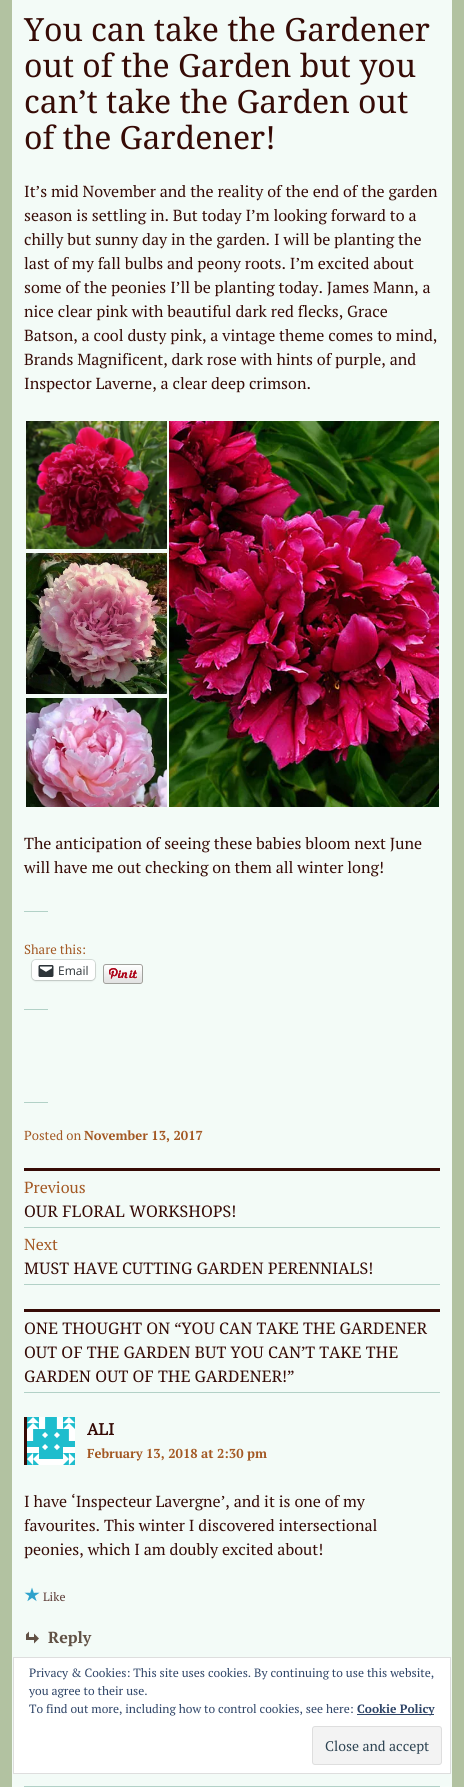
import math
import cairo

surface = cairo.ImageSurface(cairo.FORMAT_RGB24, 464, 1787)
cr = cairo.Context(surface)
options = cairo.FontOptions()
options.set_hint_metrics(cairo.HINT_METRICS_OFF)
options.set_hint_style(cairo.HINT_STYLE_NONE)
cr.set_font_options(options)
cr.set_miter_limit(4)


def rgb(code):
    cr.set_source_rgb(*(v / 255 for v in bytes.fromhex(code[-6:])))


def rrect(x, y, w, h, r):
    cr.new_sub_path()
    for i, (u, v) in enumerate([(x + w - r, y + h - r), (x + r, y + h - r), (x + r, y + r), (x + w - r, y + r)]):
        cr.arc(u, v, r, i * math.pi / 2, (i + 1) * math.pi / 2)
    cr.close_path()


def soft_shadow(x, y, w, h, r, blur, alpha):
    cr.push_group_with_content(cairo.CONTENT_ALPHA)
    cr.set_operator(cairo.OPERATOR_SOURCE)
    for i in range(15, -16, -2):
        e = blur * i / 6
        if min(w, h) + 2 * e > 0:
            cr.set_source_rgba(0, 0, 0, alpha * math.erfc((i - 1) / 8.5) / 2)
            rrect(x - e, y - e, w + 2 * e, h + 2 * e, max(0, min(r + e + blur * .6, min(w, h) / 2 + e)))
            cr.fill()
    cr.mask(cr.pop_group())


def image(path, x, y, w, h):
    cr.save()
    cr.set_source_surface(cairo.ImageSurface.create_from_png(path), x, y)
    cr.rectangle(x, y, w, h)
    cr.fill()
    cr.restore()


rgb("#b2c2a1")
cr.paint()
rgb("#f3fbf7")
cr.rectangle(12, 0, 440, 1787)
cr.fill()
image("img/1.png", 26, 421, 141, 128)
image("img/2.png", 26, 553, 141, 141)
image("img/3.png", 26, 698, 141, 109)
image("img/4.png", 169, 421, 270, 386)
rgb("#b2d1c7")
cr.rectangle(24, 911, 24, 1)
cr.fill()
rrect(31.5, 959.5, 64, 21, 4.5)
rgb("#d6ddd9")
cr.set_line_width(1)
cr.stroke()
rgb("#000000")
soft_shadow(32, 961, 63, 20, 4, 1, 0.12)
rgb("#ffffff")
rrect(32, 960, 63, 20, 4)
cr.fill()
image("img/5.png", 38, 965, 16, 12)
image("img/6.png", 103, 964, 40, 20)
for x, y, w, h, color in [
    (24, 1009, 24, 1, "#b2d1c7"),
    (24, 1102, 24, 1, "#b2d1c7"),
    (24, 1168, 416, 3, "#360b06"),
    (24, 1227, 416, 1, "#b2d1c7"),
    (24, 1284, 416, 1, "#b2d1c7"),
    (24, 1309, 416, 3, "#360b06"),
    (24, 1392, 416, 1, "#b2d1c7"),
    (24, 1417, 3, 48, "#360b06"),
]:
    rgb(color)
    cr.rectangle(x, y, w, h)
    cr.fill()
image("img/7.png", 27, 1417, 48, 48)
image("img/8.png", 24, 1587, 16, 15)
image("img/9.png", 26, 1631, 13, 13)
cr.rectangle(24.5, 1786.5, 415, 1)
rgb("#b2d1c7")
cr.stroke()
rgb("#ffffff")
cr.rectangle(13.5, 1657.5, 437, 116)
cr.fill_preserve()
rgb("#dedede")
cr.stroke()
rgb("#2e4467")
cr.rectangle(357, 1714, 77, 1)
cr.fill()
rgb("#f3f3f3")
rrect(312.5, 1726.5, 129, 38, 2.5)
cr.fill_preserve()
rgb("#dedede")
cr.stroke()
cr.select_font_face("Noto Serif")
cr.set_font_size(32)
rgb("#360b06")
for x, y, s in [
    (24, 41, "You can take the Gardener"),
    (24, 77, "out of the Garden but you"),
    (24, 113, "can’t take the Garden out"),
    (24, 149, "of the Gardener!"),
]:
    cr.move_to(x, y)
    cr.show_text(s)
cr.select_font_face("PT Serif")
cr.set_font_size(16)
for x, y, s in [
    (24, 197, "It’s mid November and the reality of the end of the garden"),
    (24, 221, "season is settling in. But today I’m looking forward to a"),
    (24, 245, "chilly but sunny day in the garden. I will be planting the"),
    (24, 269, "last of my fall bulbs and peony roots. I’m excited about"),
    (24, 293, "some of the peonies I’ll be planting today. James Mann, a"),
    (24, 317, "nice clear pink with beautiful dark red flecks, Grace"),
    (24, 341, "Batson, a cool dusty pink, a vintage theme comes to mind,"),
    (24, 365, "Brands Magnificent, dark rose with hints of purple, and"),
    (24, 389, "Inspector Laverne, a clear deep crimson."),
    (24, 849, "The anticipation of seeing these babies bloom next June"),
    (24, 873, "will have me out checking on them all winter long!"),
]:
    cr.move_to(x, y)
    cr.show_text(s)
cr.set_font_size(13)
rgb("#a35823")
cr.move_to(24, 954)
cr.show_text("Share this:")
cr.select_font_face("Open Sans")
cr.set_font_size(12)
rgb("#2c3338")
cr.move_to(58, 975)
cr.show_text("Email")
cr.select_font_face("PT Serif")
cr.set_font_size(13)
rgb("#a35823")
cr.move_to(24, 1140)
cr.show_text("Posted on")
cr.select_font_face("PT Serif", cairo.FONT_SLANT_NORMAL, cairo.FONT_WEIGHT_BOLD)
cr.move_to(84, 1140)
cr.show_text("November 13, 2017")
cr.select_font_face("PT Serif")
cr.set_font_size(16)
cr.move_to(24, 1193)
cr.show_text("Previous")
cr.select_font_face("Noto Serif")
rgb("#360b06")
cr.move_to(24, 1217)
cr.show_text("OUR FLORAL WORKSHOPS!")
cr.select_font_face("PT Serif")
rgb("#a35823")
cr.move_to(24, 1250)
cr.show_text("Next")
cr.select_font_face("Noto Serif")
rgb("#360b06")
for x, y, s in [
    (24, 1274, "MUST HAVE CUTTING GARDEN PERENNIALS!"),
    (24, 1334, "ONE THOUGHT ON “YOU CAN TAKE THE GARDENER"),
    (24, 1358, "OUT OF THE GARDEN BUT YOU CAN’T TAKE THE"),
    (24, 1382, "GARDEN OUT OF THE GARDENER!”"),
]:
    cr.move_to(x, y)
    cr.show_text(s)
cr.select_font_face("Noto Serif", cairo.FONT_SLANT_NORMAL, cairo.FONT_WEIGHT_BOLD)
cr.move_to(87, 1435)
cr.show_text("ALI")
cr.select_font_face("PT Serif", cairo.FONT_SLANT_NORMAL, cairo.FONT_WEIGHT_BOLD)
cr.set_font_size(13)
rgb("#a35823")
cr.move_to(87, 1458)
cr.show_text("February 13, 2018 at 2:30 pm")
cr.select_font_face("PT Serif")
cr.set_font_size(16)
rgb("#360b06")
for x, y, s in [
    (24, 1507, "I have ‘Inspecteur Lavergne’, and it is one of my"),
    (24, 1531, "favourites. This winter I discovered intersectional"),
    (24, 1555, "peonies, which I am doubly excited about!"),
]:
    cr.move_to(x, y)
    cr.show_text(s)
cr.set_font_size(12)
rgb("#5c3b36")
cr.move_to(43, 1601)
cr.show_text("Like")
cr.select_font_face("PT Serif", cairo.FONT_SLANT_NORMAL, cairo.FONT_WEIGHT_BOLD)
cr.set_font_size(16)
rgb("#615145")
cr.move_to(48, 1643)
cr.show_text("Reply")
cr.select_font_face("PT Serif")
cr.set_font_size(12)
rgb("#2e4467")
for x, y, s in [
    (29, 1677, "Privacy & Cookies: This site uses cookies. By continuing to use this website,"),
    (29, 1695, "you agree to their use."),
    (29, 1713, "To find out more, including how to control cookies, see here:"),
]:
    cr.move_to(x, y)
    cr.show_text(s)
cr.select_font_face("PT Serif", cairo.FONT_SLANT_NORMAL, cairo.FONT_WEIGHT_BOLD)
cr.move_to(357, 1713)
cr.show_text("Cookie Policy")
cr.select_font_face("PT Serif")
cr.set_font_size(14)
rgb("#2e4453")
cr.move_to(325, 1751)
cr.show_text("Close and accept")
surface.write_to_png("page.png")
